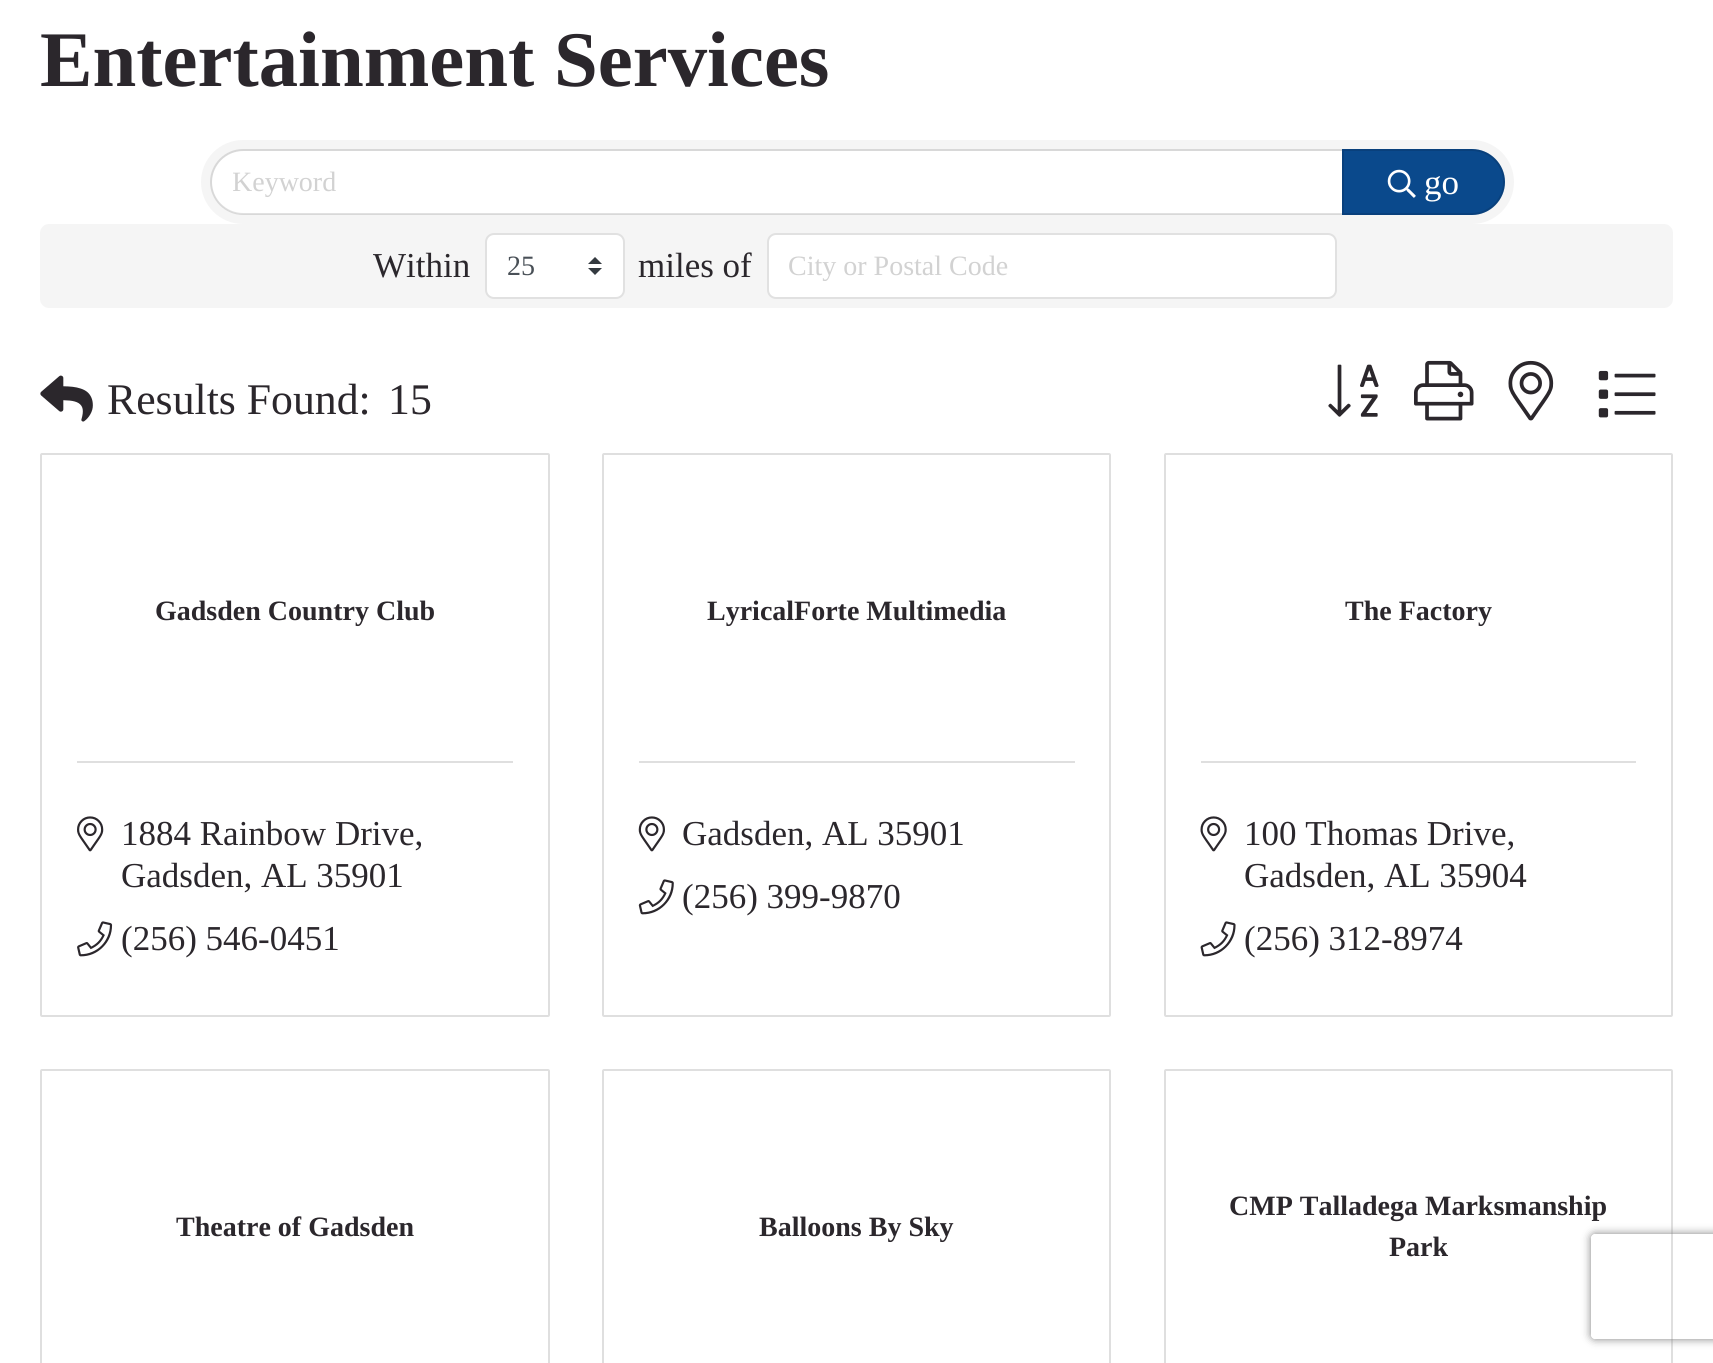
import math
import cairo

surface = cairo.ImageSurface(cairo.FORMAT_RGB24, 1713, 1363)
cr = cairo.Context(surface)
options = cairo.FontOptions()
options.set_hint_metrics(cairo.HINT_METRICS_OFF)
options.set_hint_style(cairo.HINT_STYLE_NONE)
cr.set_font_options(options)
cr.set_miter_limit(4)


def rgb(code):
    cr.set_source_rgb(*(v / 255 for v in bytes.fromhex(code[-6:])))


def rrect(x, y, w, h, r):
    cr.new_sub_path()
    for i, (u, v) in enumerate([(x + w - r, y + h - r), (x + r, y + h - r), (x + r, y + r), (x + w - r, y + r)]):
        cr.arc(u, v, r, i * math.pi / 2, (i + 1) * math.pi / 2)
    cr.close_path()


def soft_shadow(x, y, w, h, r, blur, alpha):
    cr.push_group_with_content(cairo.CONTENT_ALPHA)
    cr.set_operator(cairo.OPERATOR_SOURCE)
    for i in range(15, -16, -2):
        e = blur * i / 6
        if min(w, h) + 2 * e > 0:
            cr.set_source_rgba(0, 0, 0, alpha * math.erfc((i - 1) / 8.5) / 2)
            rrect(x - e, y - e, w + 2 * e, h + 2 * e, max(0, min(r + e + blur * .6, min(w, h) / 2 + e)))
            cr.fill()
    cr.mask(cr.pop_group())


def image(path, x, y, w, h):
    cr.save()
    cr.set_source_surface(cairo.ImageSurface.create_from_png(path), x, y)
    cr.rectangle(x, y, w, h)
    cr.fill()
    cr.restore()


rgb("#ffffff")
cr.paint()
rgb("#f5f5f5")
rrect(201, 140, 1313, 84, 42)
cr.fill()
rgb("#ffffff")
cr.new_path()
cr.move_to(243.5, 151)
cr.line_to(1342, 151)
cr.line_to(1342, 214)
cr.line_to(243.5, 214)
cr.curve_to(226, 214, 212, 200, 212, 182.5)
cr.curve_to(212, 165, 226, 151, 243.5, 151)
cr.close_path()
cr.fill()
cr.new_path()
cr.move_to(243, 150)
cr.line_to(1343, 150)
cr.line_to(1343, 214)
cr.line_to(243, 214)
cr.curve_to(225.5, 214, 211, 199.5, 211, 182)
cr.curve_to(211, 164.5, 225.5, 150, 243, 150)
cr.close_path()
cr.set_source_rgba(0, 0, 0, 0.12)
cr.stroke()
rgb("#0a498c")
cr.new_path()
cr.move_to(1342, 149)
cr.line_to(1472, 149)
cr.curve_to(1490, 149, 1505, 164, 1505, 182)
cr.curve_to(1505, 200, 1490, 215, 1472, 215)
cr.line_to(1342, 215)
cr.close_path()
cr.fill()
cr.new_path()
cr.move_to(1343, 150)
cr.line_to(1472, 150)
cr.curve_to(1489.5, 150, 1504, 164.5, 1504, 182)
cr.curve_to(1504, 199.5, 1489.5, 214, 1472, 214)
cr.line_to(1343, 214)
cr.close_path()
cr.set_source_rgba(0, 0, 0, 0.12)
cr.stroke()
image("img/1.png", 1387, 169, 29, 29)
rgb("#f5f5f5")
rrect(40, 224, 1633, 84, 9)
cr.fill()
rgb("#ffffff")
rrect(485, 233, 140, 66, 9)
cr.fill()
rgb("#343a40")
cr.new_path()
cr.move_to(595, 257)
cr.line_to(588, 264)
cr.line_to(602, 264)
cr.close_path()
cr.move_to(595, 275)
cr.line_to(588, 268)
cr.line_to(602, 268)
cr.close_path()
cr.fill()
rrect(486, 234, 138, 64, 8)
cr.set_source_rgba(0, 0, 0, 0.12)
cr.stroke()
rgb("#ffffff")
rrect(767, 233, 570, 66, 9)
cr.fill()
rrect(768, 234, 568, 64, 8)
cr.set_source_rgba(0, 0, 0, 0.12)
cr.stroke()
image("img/2.png", 40, 375, 53, 47)
image("img/3.png", 1328, 364, 51, 53)
image("img/4.png", 1414, 360, 60, 61)
image("img/5.png", 1508, 360, 46, 61)
image("img/6.png", 1598, 370, 58, 48)
rrect(41, 454, 508, 562, 1)
rgb("#dfdfdf")
cr.stroke()
cr.rectangle(77, 761, 436, 2)
cr.fill()
image("img/7.png", 77, 816, 27, 36)
image("img/8.png", 77, 921, 36, 36)
rrect(603, 454, 507, 562, 1)
cr.stroke()
cr.rectangle(639, 761, 436, 2)
cr.fill()
image("img/9.png", 638, 816, 27, 36)
image("img/10.png", 638, 879, 36, 36)
rrect(1165, 454, 507, 562, 1)
cr.stroke()
cr.rectangle(1201, 761, 435, 2)
cr.fill()
image("img/11.png", 1200, 816, 27, 36)
image("img/12.png", 1200, 921, 36, 36)
rrect(41, 1070, 508, 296, 1)
cr.stroke()
rrect(603, 1070, 507, 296, 1)
cr.stroke()
rrect(1165, 1070, 507, 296, 1)
cr.stroke()
cr.save()
cr.set_fill_rule(cairo.FILL_RULE_EVEN_ODD)
cr.new_path()
cr.move_to(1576, 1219)
cr.line_to(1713, 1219)
cr.line_to(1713, 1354)
cr.line_to(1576, 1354)
cr.close_path()
cr.move_to(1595, 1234)
cr.line_to(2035, 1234)
cr.curve_to(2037, 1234, 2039, 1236, 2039, 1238)
cr.line_to(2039, 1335)
cr.curve_to(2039, 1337, 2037, 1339, 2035, 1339)
cr.line_to(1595, 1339)
cr.curve_to(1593, 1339, 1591, 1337, 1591, 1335)
cr.line_to(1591, 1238)
cr.curve_to(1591, 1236, 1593, 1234, 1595, 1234)
cr.close_path()
cr.clip()
rgb("#808080")
soft_shadow(1591, 1234, 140, 105, 4, 4.5, 1)
cr.restore()
cr.select_font_face("Liberation Serif", cairo.FONT_SLANT_NORMAL, cairo.FONT_WEIGHT_BOLD)
cr.set_font_size(78.75)
rgb("#2b272c")
cr.move_to(40, 86)
cr.show_text("Entertainment Services")
cr.save()
cr.rectangle(233, 166, 1088, 32)
cr.clip()
cr.select_font_face("Liberation Serif")
cr.set_font_size(28)
rgb("#d2d2d2")
cr.move_to(232, 191)
cr.show_text("Keyword")
cr.restore()
cr.select_font_face("Liberation Serif")
cr.set_font_size(35)
rgb("#ffffff")
cr.move_to(1424, 194)
cr.show_text("go")
rgb("#2b272c")
cr.move_to(373, 277)
cr.show_text("Within")
cr.set_font_size(28)
rgb("#495057")
cr.move_to(507, 275)
cr.show_text("25")
cr.set_font_size(35)
rgb("#2b272c")
cr.move_to(638, 277)
cr.show_text("miles of")
cr.set_font_size(28)
rgb("#d2d2d2")
cr.move_to(788, 275)
cr.show_text("City or Postal Code")
cr.set_font_size(43.75)
rgb("#2b272c")
cr.move_to(107, 414)
cr.show_text("Results Found:")
cr.move_to(388, 414)
cr.show_text("15")
cr.select_font_face("Liberation Serif", cairo.FONT_SLANT_NORMAL, cairo.FONT_WEIGHT_BOLD)
cr.set_font_size(28)
cr.move_to(155, 620)
cr.show_text("Gadsden Country Club")
cr.select_font_face("Liberation Serif")
cr.set_font_size(35)
for x, y, s in [
    (121, 845, "1884 Rainbow Drive,"),
    (121, 887, "Gadsden, AL 35901"),
    (121, 950, "(256) 546-0451"),
]:
    cr.move_to(x, y)
    cr.show_text(s)
cr.select_font_face("Liberation Serif", cairo.FONT_SLANT_NORMAL, cairo.FONT_WEIGHT_BOLD)
cr.set_font_size(28)
cr.move_to(707, 620)
cr.show_text("LyricalForte Multimedia")
cr.select_font_face("Liberation Serif")
cr.set_font_size(35)
cr.move_to(682, 845)
cr.show_text("Gadsden, AL 35901")
cr.move_to(682, 908)
cr.show_text("(256) 399-9870")
cr.select_font_face("Liberation Serif", cairo.FONT_SLANT_NORMAL, cairo.FONT_WEIGHT_BOLD)
cr.set_font_size(28)
cr.move_to(1345, 620)
cr.show_text("The Factory")
cr.select_font_face("Liberation Serif")
cr.set_font_size(35)
for x, y, s in [
    (1244, 845, "100 Thomas Drive,"),
    (1244, 887, "Gadsden, AL 35904"),
    (1244, 950, "(256) 312-8974"),
]:
    cr.move_to(x, y)
    cr.show_text(s)
cr.select_font_face("Liberation Serif", cairo.FONT_SLANT_NORMAL, cairo.FONT_WEIGHT_BOLD)
cr.set_font_size(28)
for x, y, s in [
    (176, 1236, "Theatre of Gadsden"),
    (759, 1236, "Balloons By Sky"),
    (1229, 1215, "CMP Talladega Marksmanship"),
    (1389, 1256, "Park"),
]:
    cr.move_to(x, y)
    cr.show_text(s)
surface.write_to_png("page.png")
